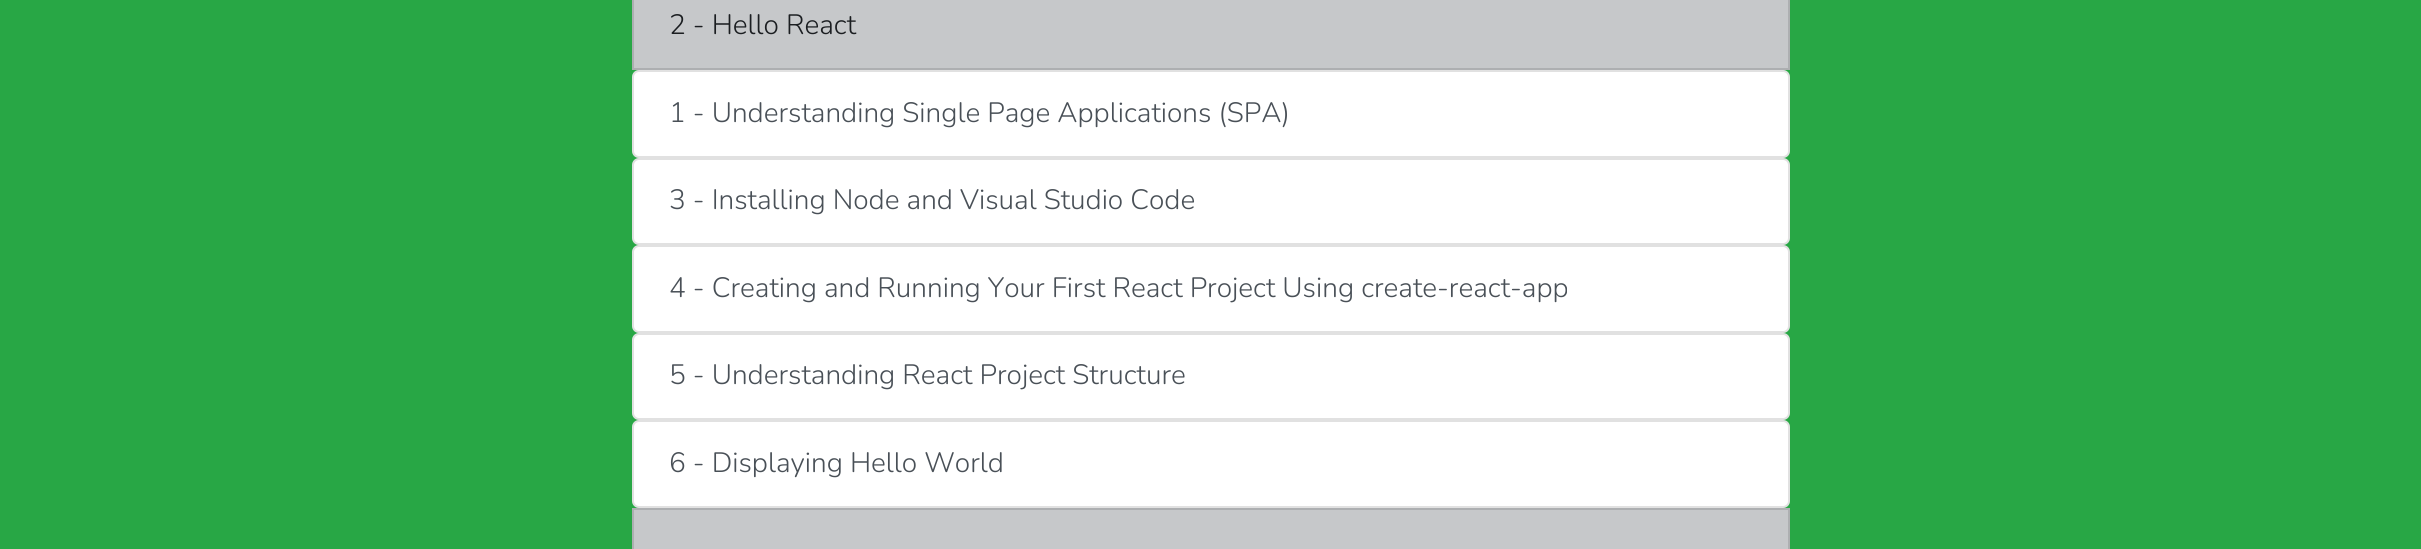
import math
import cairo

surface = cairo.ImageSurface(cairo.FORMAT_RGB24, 2421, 549)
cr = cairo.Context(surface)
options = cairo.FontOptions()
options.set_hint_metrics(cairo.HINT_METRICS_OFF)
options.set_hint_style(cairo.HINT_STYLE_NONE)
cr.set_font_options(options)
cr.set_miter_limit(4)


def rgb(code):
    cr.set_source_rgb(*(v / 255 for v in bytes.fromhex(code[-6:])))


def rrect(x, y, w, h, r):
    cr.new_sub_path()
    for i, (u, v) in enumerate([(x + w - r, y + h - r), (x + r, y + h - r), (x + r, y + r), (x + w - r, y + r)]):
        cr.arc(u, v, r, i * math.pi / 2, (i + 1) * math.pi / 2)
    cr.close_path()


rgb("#28a745")
cr.paint()
rgb("#c6c8ca")
cr.rectangle(633, -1, 1156, 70)
cr.fill_preserve()
rgb("#adafb1")
cr.stroke()
rgb("#ffffff")
rrect(632, 70, 1158, 88, 7)
cr.fill()
rrect(633, 71, 1156, 86, 6)
cr.set_source_rgba(0, 0, 0, 0.12)
cr.stroke()
rgb("#ffffff")
rrect(632, 158, 1158, 87, 7)
cr.fill()
rrect(633, 159, 1156, 85, 6)
cr.set_source_rgba(0, 0, 0, 0.12)
cr.stroke()
rgb("#ffffff")
rrect(632, 245, 1158, 88, 7)
cr.fill()
rrect(633, 246, 1156, 86, 6)
cr.set_source_rgba(0, 0, 0, 0.12)
cr.stroke()
rgb("#ffffff")
rrect(632, 333, 1158, 87, 7)
cr.fill()
rrect(633, 334, 1156, 85, 6)
cr.set_source_rgba(0, 0, 0, 0.12)
cr.stroke()
rgb("#ffffff")
rrect(632, 420, 1158, 88, 7)
cr.fill()
rrect(633, 421, 1156, 86, 6)
cr.set_source_rgba(0, 0, 0, 0.12)
cr.stroke()
rgb("#c6c8ca")
cr.rectangle(633, 509, 1156, 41)
cr.fill_preserve()
rgb("#adafb1")
cr.stroke()
cr.select_font_face("Nunito Light")
cr.set_font_size(28)
rgb("#1b1e21")
cr.move_to(669, 34)
cr.show_text("2 - Hello React")
rgb("#495057")
for x, y, s in [
    (669, 122, "1 - Understanding Single Page Applications (SPA)"),
    (669, 209, "3 - Installing Node and Visual Studio Code"),
    (669, 297, "4 - Creating and Running Your First React Project Using create-react-app"),
    (669, 384, "5 - Understanding React Project Structure"),
    (669, 472, "6 - Displaying Hello World"),
]:
    cr.move_to(x, y)
    cr.show_text(s)
surface.write_to_png("page.png")
